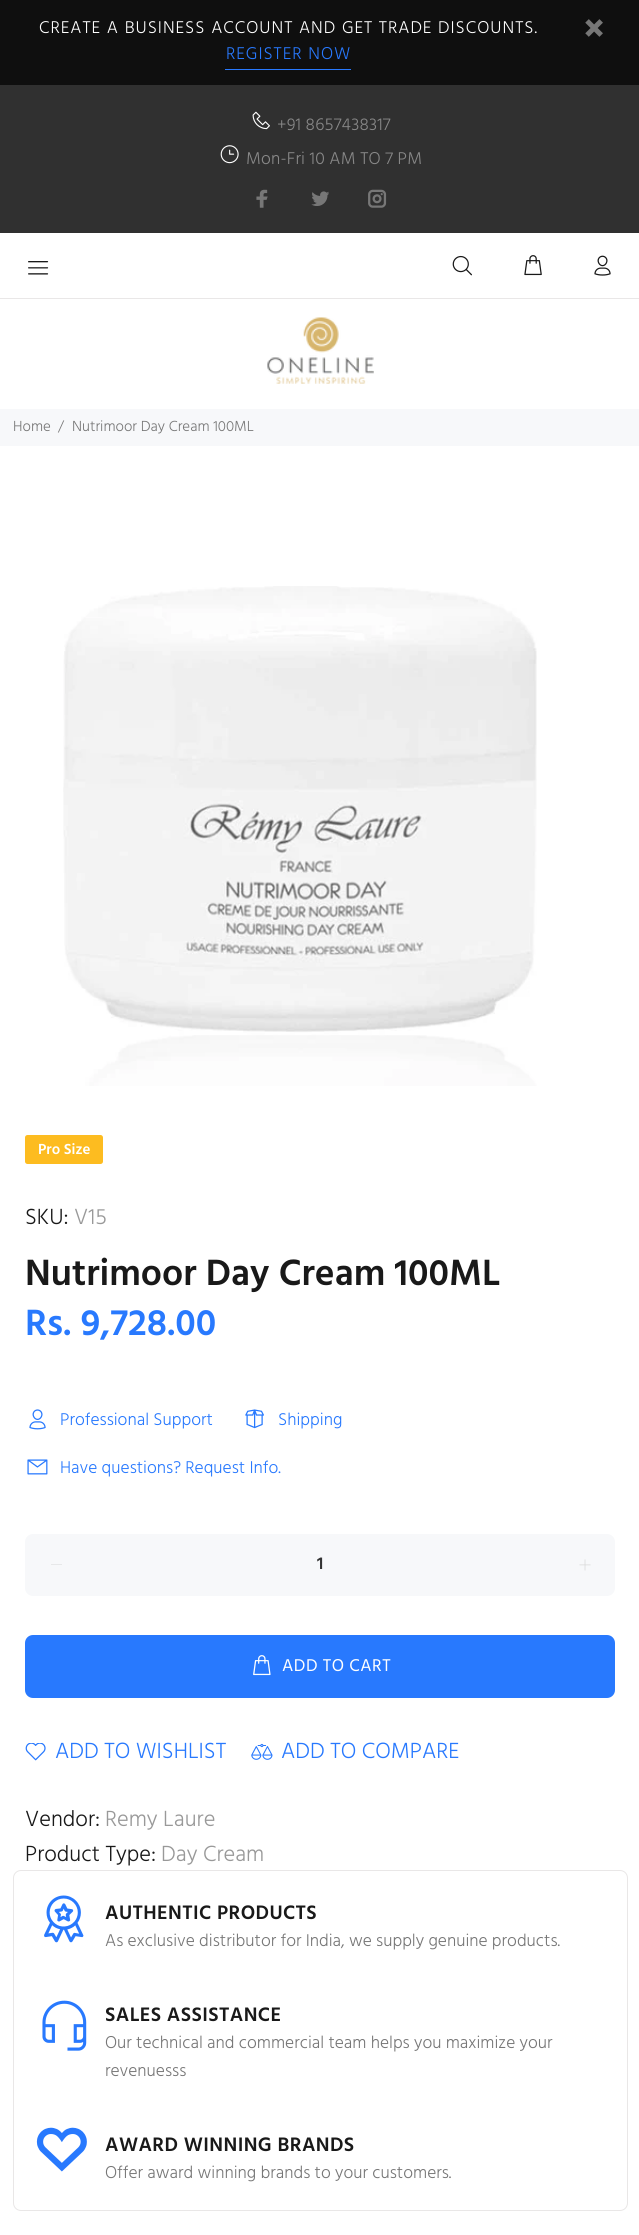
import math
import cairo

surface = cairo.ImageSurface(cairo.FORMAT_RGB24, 639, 2235)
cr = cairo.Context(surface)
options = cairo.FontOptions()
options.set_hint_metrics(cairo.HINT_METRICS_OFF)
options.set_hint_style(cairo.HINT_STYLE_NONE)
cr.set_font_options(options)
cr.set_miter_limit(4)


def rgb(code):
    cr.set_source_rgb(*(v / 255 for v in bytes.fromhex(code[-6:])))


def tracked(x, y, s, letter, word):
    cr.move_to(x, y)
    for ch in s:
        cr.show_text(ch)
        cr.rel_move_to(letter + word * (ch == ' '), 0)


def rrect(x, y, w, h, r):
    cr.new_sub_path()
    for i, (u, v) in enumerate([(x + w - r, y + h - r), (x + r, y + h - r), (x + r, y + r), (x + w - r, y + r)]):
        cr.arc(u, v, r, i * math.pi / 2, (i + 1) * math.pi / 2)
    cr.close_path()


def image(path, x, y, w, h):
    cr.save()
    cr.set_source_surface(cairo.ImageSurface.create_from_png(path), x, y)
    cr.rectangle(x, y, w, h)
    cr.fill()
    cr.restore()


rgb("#ffffff")
cr.paint()
rgb("#0f0f0f")
cr.rectangle(0, 0, 639, 85)
cr.fill()
rgb("#2879fe")
cr.rectangle(225, 69, 126, 1)
cr.fill()
image("img/1.png", 585, 19, 18, 18)
rgb("#303030")
cr.rectangle(0, 85, 639, 148)
cr.fill()
image("img/2.png", 252, 111, 18, 19)
image("img/3.png", 220, 145, 19, 19)
image("img/4.png", 256, 189, 12, 19)
image("img/5.png", 311, 191, 18, 15)
image("img/6.png", 368, 189, 19, 19)
image("img/7.png", 28, 261, 21, 14)
image("img/8.png", 452, 255, 20, 21)
image("img/9.png", 524, 255, 18, 21)
image("img/10.png", 594, 255, 17, 21)
rgb("#e9e7e7")
cr.rectangle(0, 298, 639, 1)
cr.fill()
image("img/11.png", 267, 317, 107, 67)
rgb("#f7f8fa")
cr.rectangle(0, 409, 639, 37)
cr.fill()
image("img/12.png", 63, 586, 474, 500)
rgb("#fdbc20")
rrect(25, 1135, 78, 29, 2.5)
cr.fill()
image("img/13.png", 29, 1409, 17, 21)
image("img/14.png", 245, 1409, 19, 20)
image("img/15.png", 27, 1459, 21, 16)
rgb("#f7f8fa")
rrect(25, 1534, 590, 62, 8)
cr.fill()
rgb("#d8d8d8")
cr.new_path()
cr.move_to(62, 1564.5)
cr.line_to(62, 1565)
cr.line_to(51, 1565)
cr.line_to(51, 1564.5)
cr.close_path()
cr.fill()
image("img/16.png", 579, 1559, 12, 12)
rgb("#2879fe")
rrect(25, 1635, 590, 63, 8)
cr.fill()
image("img/17.png", 253, 1655, 18, 21)
image("img/18.png", 25, 1743, 21, 18)
image("img/19.png", 251, 1743, 22, 17)
rrect(13.5, 1870.5, 614, 340, 7.5)
rgb("#e9e7e7")
cr.set_line_width(1)
cr.stroke()
image("img/20.png", 44, 1895, 40, 48)
image("img/21.png", 42, 2000, 45, 51)
image("img/22.png", 36, 2127, 51, 45)
cr.select_font_face("Hind Light")
cr.set_font_size(17.5)
rgb("#ffffff")
tracked(39, 33, "CREATE A BUSINESS ACCOUNT AND GET TRADE DISCOUNTS.", 0.98, 0.5)
rgb("#2879fe")
tracked(226, 59, "REGISTER NOW", 0.98, 0.5)
rgb("#888888")
tracked(277, 130, "+91 8657438317", 0.2, 0)
tracked(246, 164, "Mon-Fri 10 AM TO 7 PM", 0.2, 0)
cr.set_font_size(15)
rgb("#777777")
for x, y, s in [
    (13, 431, "Home"),
    (58, 431, "/"),
    (72, 431, "Nutrimoor Day Cream 100ML"),
]:
    cr.move_to(x, y)
    cr.show_text(s)
cr.select_font_face("Hind SemiBold")
rgb("#ffffff")
cr.move_to(38, 1154)
cr.show_text("Pro Size")
cr.select_font_face("Hind Light")
cr.set_font_size(22.5)
rgb("#191919")
cr.move_to(25, 1224)
cr.show_text("SKU:")
rgb("#999999")
cr.move_to(74, 1224)
cr.show_text("V15")
cr.select_font_face("Hind SemiBold")
cr.set_font_size(37.5)
rgb("#191919")
cr.move_to(25, 1285)
cr.show_text("Nutrimoor Day Cream 100ML")
rgb("#2879fe")
cr.move_to(25, 1335)
cr.show_text("Rs. 9,728.00")
cr.select_font_face("Hind Light")
cr.set_font_size(17.5)
for x, y, s in [
    (60, 1425, "Professional Support"),
    (278, 1425, "Shipping"),
    (60, 1473, "Have questions? Request Info."),
]:
    cr.move_to(x, y)
    cr.show_text(s)
cr.select_font_face("Hind SemiBold")
rgb("#333333")
cr.move_to(317, 1569)
cr.show_text("1")
cr.select_font_face("Hind")
rgb("#ffffff")
tracked(282, 1671, "ADD TO CART", 0.5, 0)
cr.select_font_face("Hind Light")
cr.set_font_size(22.5)
rgb("#2879fe")
cr.move_to(55, 1758)
cr.show_text("ADD TO WISHLIST")
cr.move_to(281, 1758)
cr.show_text("ADD TO COMPARE")
rgb("#191919")
cr.move_to(25, 1826)
cr.show_text("Vendor:")
rgb("#999999")
cr.move_to(105, 1826)
cr.show_text("Remy Laure")
rgb("#191919")
cr.move_to(25, 1861)
cr.show_text("Product Type:")
rgb("#999999")
cr.move_to(161, 1861)
cr.show_text("Day Cream")
cr.select_font_face("Hind SemiBold")
cr.set_font_size(20)
rgb("#191919")
tracked(105, 1919, "AUTHENTIC PRODUCTS", 0.4, 0)
cr.select_font_face("Hind Light")
cr.set_font_size(17.5)
rgb("#777777")
cr.move_to(105, 1946)
cr.show_text("As exclusive distributor for India, we supply genuine products.")
cr.select_font_face("Hind SemiBold")
cr.set_font_size(20)
rgb("#191919")
tracked(105, 2021, "SALES ASSISTANCE", 0.4, 0)
cr.select_font_face("Hind Light")
cr.set_font_size(17.5)
rgb("#777777")
cr.move_to(105, 2048)
cr.show_text("Our technical and commercial team helps you maximize your")
cr.move_to(105, 2076)
cr.show_text("revenuesss")
cr.select_font_face("Hind SemiBold")
cr.set_font_size(20)
rgb("#191919")
tracked(105, 2151, "AWARD WINNING BRANDS", 0.4, 0)
cr.select_font_face("Hind Light")
cr.set_font_size(17.5)
rgb("#777777")
cr.move_to(105, 2178)
cr.show_text("Offer award winning brands to your customers.")
surface.write_to_png("page.png")
